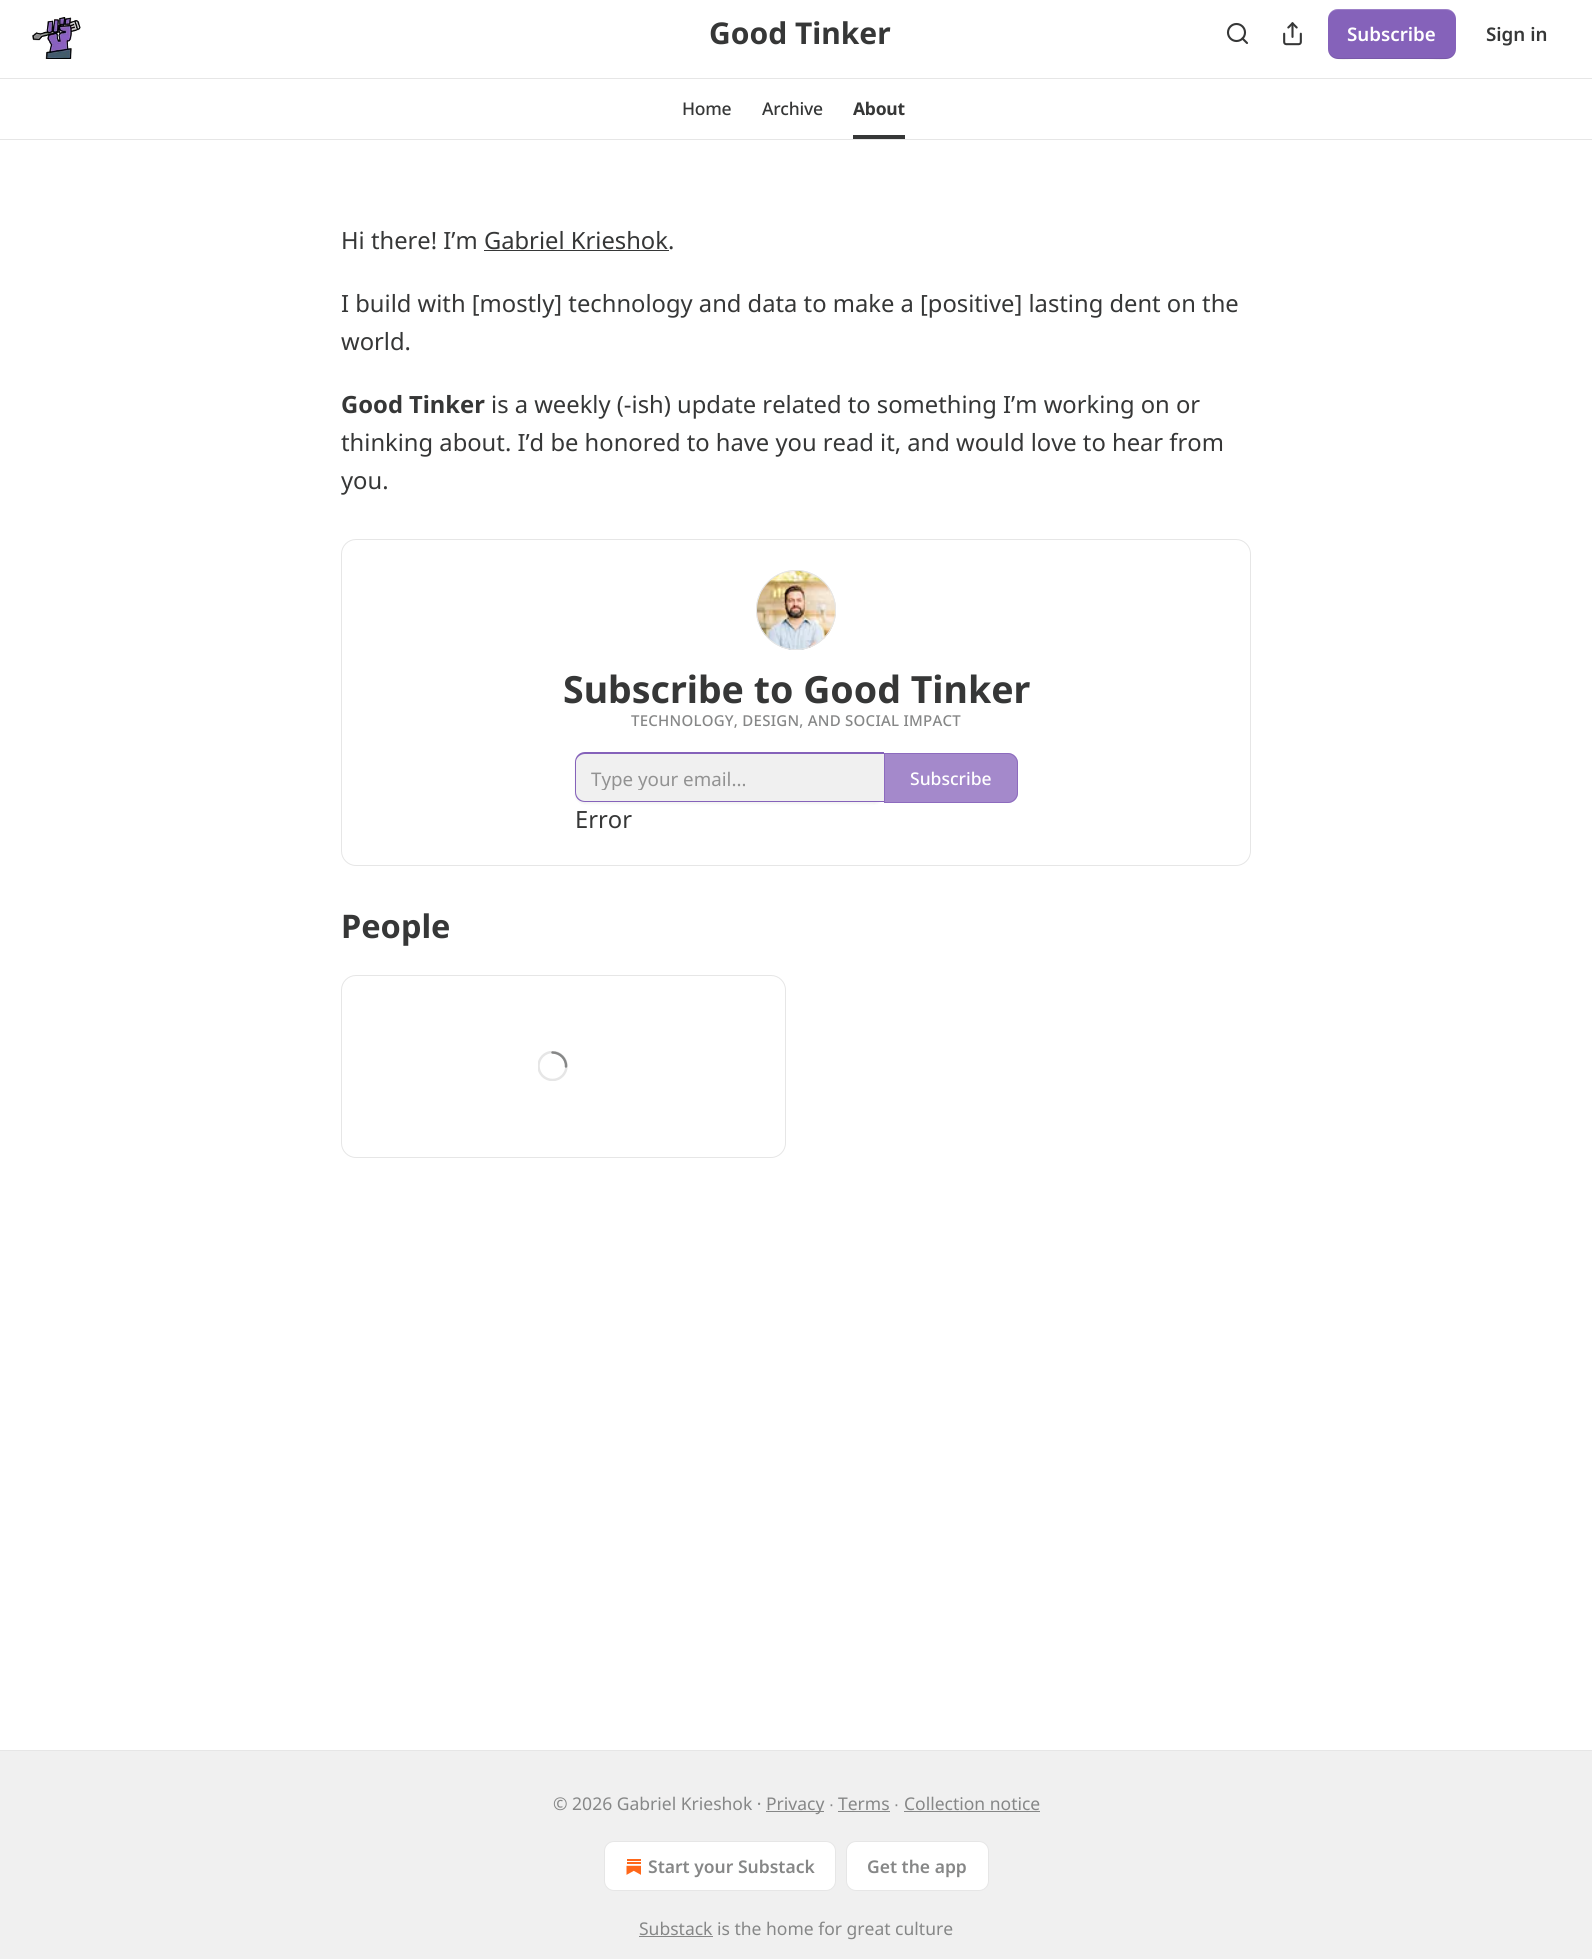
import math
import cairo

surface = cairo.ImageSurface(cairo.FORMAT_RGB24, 1592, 1959)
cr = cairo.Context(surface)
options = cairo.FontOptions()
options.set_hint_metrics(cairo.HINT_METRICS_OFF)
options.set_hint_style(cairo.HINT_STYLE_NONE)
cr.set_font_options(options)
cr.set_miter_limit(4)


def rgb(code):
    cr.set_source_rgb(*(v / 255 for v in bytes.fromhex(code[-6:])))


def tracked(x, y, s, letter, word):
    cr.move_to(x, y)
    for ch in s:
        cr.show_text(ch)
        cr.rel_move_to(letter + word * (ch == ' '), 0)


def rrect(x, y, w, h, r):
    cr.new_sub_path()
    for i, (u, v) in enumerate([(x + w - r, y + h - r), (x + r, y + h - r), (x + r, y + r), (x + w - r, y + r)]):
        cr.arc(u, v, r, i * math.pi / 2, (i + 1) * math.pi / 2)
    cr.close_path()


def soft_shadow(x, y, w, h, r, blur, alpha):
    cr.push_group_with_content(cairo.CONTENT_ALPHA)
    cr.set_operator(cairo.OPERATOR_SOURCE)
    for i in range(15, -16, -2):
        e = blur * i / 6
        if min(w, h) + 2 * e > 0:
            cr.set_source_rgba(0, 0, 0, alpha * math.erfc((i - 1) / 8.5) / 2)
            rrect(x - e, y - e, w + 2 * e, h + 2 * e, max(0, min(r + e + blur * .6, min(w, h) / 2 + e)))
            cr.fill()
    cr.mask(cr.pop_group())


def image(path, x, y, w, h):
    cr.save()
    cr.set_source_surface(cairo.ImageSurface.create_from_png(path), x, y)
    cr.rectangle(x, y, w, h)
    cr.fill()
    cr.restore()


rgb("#ffffff")
cr.paint()
image("img/1.png", 32, 17, 49, 42)
cr.arc(1236.5, 32.5, 8.5, 0, 2 * math.pi)
rgb("#363737")
cr.set_line_width(2.1)
cr.stroke()
cr.new_path()
cr.move_to(1247, 43)
cr.line_to(1242.5, 38.5)
cr.set_line_cap(cairo.LINE_CAP_ROUND)
cr.set_line_join(cairo.LINE_JOIN_ROUND)
cr.stroke()
image("img/2.png", 1283, 22, 19, 24)
rgb("#8562ba")
rrect(1328, 9, 128, 50, 10)
cr.fill()
cr.set_source_rgba(0, 0, 0, 0.1)
cr.new_path()
cr.move_to(1328, 48)
cr.curve_to(1328, 63, 1346, 59, 1356, 59)
cr.line_to(1428, 59)
cr.curve_to(1438, 59, 1456, 63, 1456, 48)
cr.curve_to(1456, 53, 1452, 58, 1446, 58)
cr.line_to(1338, 58)
cr.curve_to(1332, 58, 1328, 53, 1328, 48)
cr.close_path()
cr.fill()
cr.set_source_rgba(1, 1, 1, 0.2)
cr.new_path()
cr.move_to(1338, 10)
cr.line_to(1446, 10)
cr.curve_to(1452, 10, 1456, 14, 1456, 20)
cr.curve_to(1456, 5, 1438, 9, 1428, 9)
cr.line_to(1356, 9)
cr.curve_to(1346, 9, 1328, 5, 1328, 20)
cr.curve_to(1328, 14, 1332, 10, 1338, 10)
cr.close_path()
cr.fill()
for x, y, w, h, color in [
    (0, 78, 1592, 1, "#e6e6e6"),
    (0, 139, 1592, 1, "#e6e6e6"),
    (853, 135, 52, 4, "#363737"),
    (484, 250, 185, 1, "#363737"),
]:
    rgb(color)
    cr.rectangle(x, y, w, h)
    cr.fill()
rrect(341.5, 539.5, 909, 326, 14.5)
rgb("#e6e6e6")
cr.set_line_width(1)
cr.set_line_cap(cairo.LINE_CAP_BUTT)
cr.set_line_join(cairo.LINE_JOIN_MITER)
cr.stroke()
cr.arc(796, 610, 39.5, 0, 2 * math.pi)
cr.stroke()
image("img/3.png", 756, 570, 80, 80)
cr.arc(796, 610, 39.5, 0, 2 * math.pi)
cr.stroke()
rgb("#000000")
soft_shadow(575, 754, 309, 50, 10, 1, 0.05)
rgb("#f0f0f0")
cr.new_path()
cr.move_to(585, 754)
cr.line_to(884, 754)
cr.line_to(884, 801)
cr.line_to(585, 801)
cr.curve_to(580, 801, 576, 797, 576, 792)
cr.line_to(576, 763)
cr.curve_to(576, 758, 580, 754, 585, 754)
cr.close_path()
cr.fill()
rgb("#8562ba")
cr.set_fill_rule(cairo.FILL_RULE_EVEN_ODD)
cr.new_path()
cr.move_to(585, 752)
cr.line_to(884, 752)
cr.line_to(884, 802)
cr.line_to(585, 802)
cr.curve_to(579, 802, 575, 798, 575, 792)
cr.line_to(575, 762)
cr.curve_to(575, 757, 579, 752, 585, 752)
cr.close_path()
cr.move_to(585, 754)
cr.line_to(884, 754)
cr.line_to(884, 801)
cr.line_to(585, 801)
cr.curve_to(580, 801, 576, 797, 576, 792)
cr.line_to(576, 762)
cr.curve_to(576, 758, 580, 754, 585, 754)
cr.close_path()
cr.fill()
cr.set_source_rgba(0.522, 0.384, 0.729, 0.75)
cr.new_path()
cr.move_to(884, 753)
cr.line_to(1008, 753)
cr.curve_to(1013.5, 753, 1018, 757.5, 1018, 763)
cr.line_to(1018, 793)
cr.curve_to(1018, 798.5, 1013.5, 803, 1008, 803)
cr.line_to(884, 803)
cr.close_path()
cr.fill()
cr.new_path()
cr.move_to(884.5, 753.5)
cr.line_to(1008, 753.5)
cr.curve_to(1013, 753.5, 1017.5, 758, 1017.5, 763)
cr.line_to(1017.5, 793)
cr.curve_to(1017.5, 798, 1013, 802.5, 1008, 802.5)
cr.line_to(884.5, 802.5)
cr.close_path()
cr.stroke()
rrect(341.5, 975.5, 444, 182, 14.5)
rgb("#e6e6e6")
cr.stroke()
cr.save()
cr.set_fill_rule(cairo.FILL_RULE_WINDING)
cr.rectangle(538, 1051, 30, 30)
cr.clip()
cr.arc(552.5, 1066, 14, 0, 2 * math.pi)
cr.set_line_width(2.5)
cr.stroke()
cr.restore()
cr.new_path()
cr.move_to(552.5, 1052.5)
cr.curve_to(560, 1052.5, 566.5, 1059, 566, 1066.5)
rgb("#868787")
cr.set_line_width(2.5)
cr.set_line_cap(cairo.LINE_CAP_ROUND)
cr.stroke()
for x, y, w, h, color in [
    (0, 1751, 1592, 208, "#f0f0f0"),
    (0, 1750, 1592, 1, "#e6e6e6"),
    (766, 1811, 58, 1, "#868787"),
    (838, 1811, 52, 1, "#868787"),
    (904, 1811, 136, 1, "#868787"),
]:
    rgb(color)
    cr.rectangle(x, y, w, h)
    cr.fill()
rgb("#ffffff")
rrect(604.5, 1841.5, 231, 49, 9.5)
cr.fill_preserve()
rgb("#e6e6e6")
cr.set_line_width(1)
cr.set_line_cap(cairo.LINE_CAP_BUTT)
cr.stroke()
image("img/4.png", 626, 1859, 15, 16)
rgb("#ffffff")
rrect(846.5, 1841.5, 142, 49, 9.5)
cr.fill_preserve()
rgb("#e6e6e6")
cr.stroke()
rgb("#868787")
cr.rectangle(639, 1936, 74, 1)
cr.fill()
cr.select_font_face("Noto Sans", cairo.FONT_SLANT_NORMAL, cairo.FONT_WEIGHT_BOLD)
cr.set_font_size(30)
rgb("#363737")
cr.move_to(709, 44)
cr.show_text("Good Tinker")
cr.select_font_face("Noto Sans SemiBold")
cr.set_font_size(18.75)
rgb("#ffffff")
cr.move_to(1347, 41)
cr.show_text("Subscribe")
rgb("#363737")
cr.move_to(1486, 41)
cr.show_text("Sign in")
cr.select_font_face("Noto Sans Medium")
cr.set_font_size(17.5)
tracked(682, 115, "Home", -0.25, 0)
tracked(762, 115, "Archive", -0.25, 0)
cr.select_font_face("Noto Sans", cairo.FONT_SLANT_NORMAL, cairo.FONT_WEIGHT_BOLD)
tracked(853, 115, "About", -0.25, 0)
cr.select_font_face("Noto Sans")
cr.set_font_size(23.75)
for x, y, s in [
    (341, 249, "Hi there! I’m Gabriel Krieshok."),
    (341, 312, "I build with [mostly] technology and data to make a [positive] lasting dent on the"),
    (341, 350, "world."),
]:
    cr.move_to(x, y)
    cr.show_text(s)
cr.select_font_face("Noto Sans", cairo.FONT_SLANT_NORMAL, cairo.FONT_WEIGHT_BOLD)
cr.move_to(341, 413)
cr.show_text("Good Tinker")
cr.select_font_face("Noto Sans")
for x, y, s in [
    (491, 413, "is a weekly (-ish) update related to something I’m working on or"),
    (341, 451, "thinking about. I’d be honored to have you read it, and would love to hear from"),
    (341, 489, "you."),
]:
    cr.move_to(x, y)
    cr.show_text(s)
cr.select_font_face("Noto Sans", cairo.FONT_SLANT_NORMAL, cairo.FONT_WEIGHT_BOLD)
cr.set_font_size(37.5)
cr.move_to(563, 703)
cr.show_text("Subscribe to Good Tinker")
cr.select_font_face("Noto Sans Medium")
cr.set_font_size(15)
rgb("#868787")
tracked(631, 726, "TECHNOLOGY, DESIGN, AND SOCIAL IMPACT", 0.25, 0)
cr.save()
cr.set_fill_rule(cairo.FILL_RULE_WINDING)
cr.rectangle(591, 765, 278, 25)
cr.clip()
cr.select_font_face("Noto Sans")
cr.set_font_size(18.75)
rgb("#929292")
cr.move_to(591, 786)
cr.show_text("Type your email...")
cr.restore()
cr.set_font_size(17.5)
rgb("#ffffff")
cr.move_to(910, 785)
cr.show_text("Subscribe")
cr.select_font_face("Noto Sans")
cr.set_font_size(23.75)
rgb("#363737")
cr.move_to(575, 828)
cr.show_text("Error")
cr.select_font_face("Noto Sans", cairo.FONT_SLANT_NORMAL, cairo.FONT_WEIGHT_BOLD)
cr.set_font_size(32.5)
cr.move_to(341, 938)
cr.show_text("People")
cr.select_font_face("Noto Sans")
cr.set_font_size(17.5)
rgb("#868787")
cr.move_to(553, 1810)
cr.show_text("© 2026 Gabriel Krieshok ·")
cr.move_to(766, 1810)
cr.show_text("Privacy")
cr.select_font_face("Liberation Sans")
cr.move_to(829, 1810)
cr.show_text("∙")
cr.select_font_face("Noto Sans")
cr.move_to(838, 1810)
cr.show_text("Terms")
cr.select_font_face("Liberation Sans")
cr.move_to(894, 1810)
cr.show_text("∙")
cr.select_font_face("Noto Sans")
cr.move_to(904, 1810)
cr.show_text("Collection notice")
cr.select_font_face("Noto Sans SemiBold")
cr.move_to(648, 1873)
cr.show_text("Start your Substack")
cr.move_to(867, 1873)
cr.show_text("Get the app")
cr.select_font_face("Noto Sans")
cr.move_to(639, 1935)
cr.show_text("Substack is the home for great culture")
surface.write_to_png("page.png")
